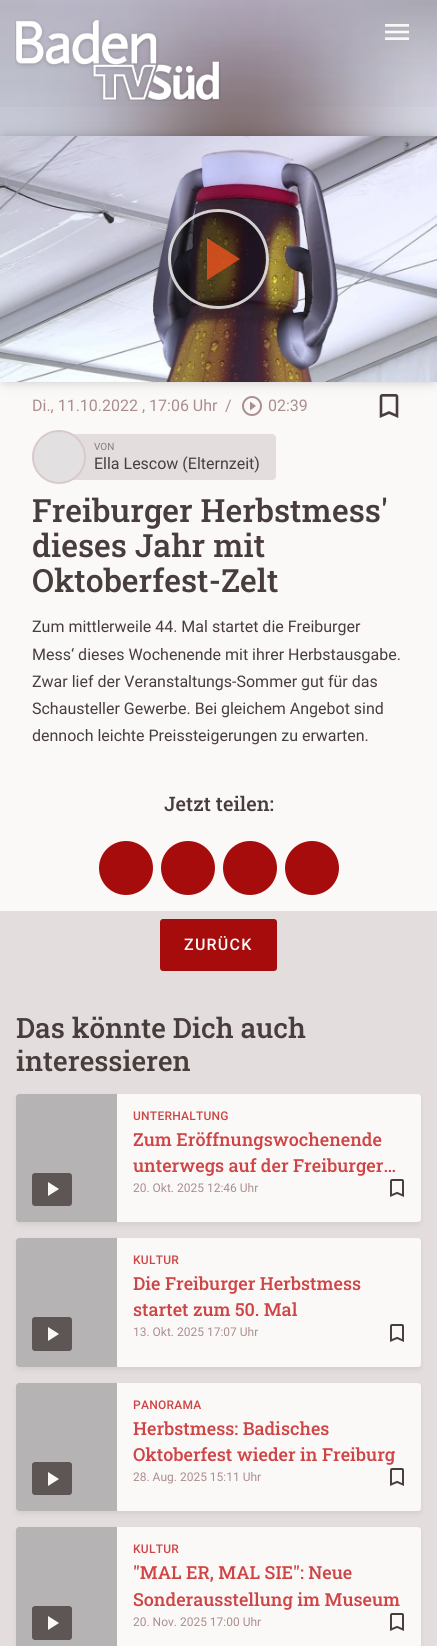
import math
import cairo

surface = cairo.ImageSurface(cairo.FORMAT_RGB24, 437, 1646)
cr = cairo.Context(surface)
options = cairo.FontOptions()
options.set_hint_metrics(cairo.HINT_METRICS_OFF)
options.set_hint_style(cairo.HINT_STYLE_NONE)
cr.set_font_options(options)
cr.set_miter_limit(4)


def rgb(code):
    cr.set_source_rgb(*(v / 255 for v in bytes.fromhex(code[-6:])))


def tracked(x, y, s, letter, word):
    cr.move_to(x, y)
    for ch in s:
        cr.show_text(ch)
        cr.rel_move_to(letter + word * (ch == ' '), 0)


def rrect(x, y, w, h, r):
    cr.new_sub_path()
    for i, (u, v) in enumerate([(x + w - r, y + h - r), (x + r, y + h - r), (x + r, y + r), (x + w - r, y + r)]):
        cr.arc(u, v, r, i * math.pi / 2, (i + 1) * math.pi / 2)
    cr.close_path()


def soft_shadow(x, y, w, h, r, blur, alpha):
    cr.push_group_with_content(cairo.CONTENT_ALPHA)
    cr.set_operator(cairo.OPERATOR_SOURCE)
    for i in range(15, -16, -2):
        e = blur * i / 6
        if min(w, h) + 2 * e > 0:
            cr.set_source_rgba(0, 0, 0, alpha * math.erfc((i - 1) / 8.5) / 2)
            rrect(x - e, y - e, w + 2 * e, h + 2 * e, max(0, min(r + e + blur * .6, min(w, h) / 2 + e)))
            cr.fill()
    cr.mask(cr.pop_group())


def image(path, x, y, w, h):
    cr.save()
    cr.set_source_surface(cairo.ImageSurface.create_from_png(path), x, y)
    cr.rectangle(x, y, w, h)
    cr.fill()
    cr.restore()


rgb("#e3dddd")
cr.paint()
image("img/3.png", 0, 0, 437, 136)
gradient = cairo.LinearGradient(219, 136, 219, 0)
gradient.add_color_stop_rgba(0, 0.18, 0.141, 0.141, 0)
gradient.add_color_stop_rgba(1, 0.18, 0.141, 0.141, 0.1)
cr.set_source(gradient)
cr.rectangle(0, 0, 437, 107)
cr.fill()
image("img/1.png", 15, 19, 206, 82)
image("img/2.png", 385, 24, 24, 16)
rgb("#fbf8f8")
cr.rectangle(0, 382, 437, 529)
cr.fill()
image("img/5.png", 242, 396, 20, 20)
image("img/6.png", 379, 394, 20, 24)
rgb("#000000")
soft_shadow(5, 141, 427, 236, 0, 7.5, 0.4)
image("img/4.png", 0, 136, 437, 246)
cr.set_source_rgba(0, 0, 0, 0.48)
rrect(168, 209, 101, 100, 50)
cr.fill()
rrect(169.5, 210.5, 98, 97, 48.5)
cr.set_source_rgba(1, 1, 1, 0.8)
cr.set_line_width(3)
cr.stroke()
cr.set_source_rgba(0.918, 0.322, 0.122, 0.8)
cr.new_path()
cr.move_to(207, 238)
cr.line_to(207, 280)
cr.line_to(240, 259)
cr.close_path()
cr.fill()
rgb("#e3dddd")
rrect(69, 434, 207, 46, 4)
cr.fill()
rgb("#fbf8f8")
cr.arc(59, 457, 26, 0, 2 * math.pi)
cr.fill_preserve()
rgb("#d8caca")
cr.set_line_width(2)
cr.stroke()
cr.set_source_rgba(0, 0, 0, 0.1)
cr.arc(59, 457, 25, 0, 2 * math.pi)
cr.fill()
rgb("#a70c0c")
cr.arc(126, 868, 27, 0, 2 * math.pi)
cr.fill()
cr.arc(188, 868, 27, 0, 2 * math.pi)
cr.fill()
cr.arc(250, 868, 27, 0, 2 * math.pi)
cr.fill()
cr.arc(312, 868, 27, 0, 2 * math.pi)
cr.fill()
rrect(160, 919, 117, 52, 3)
cr.fill()
rgb("#000000")
soft_shadow(16, 1097, 405, 128, 3, 3, 0.07)
rgb("#fbf8f8")
rrect(16, 1094, 405, 128, 3)
cr.fill()
cr.set_source_rgba(0, 0, 0, 0.2)
cr.new_path()
cr.move_to(19, 1094)
cr.line_to(117, 1094)
cr.line_to(117, 1222)
cr.line_to(19, 1222)
cr.curve_to(17.5, 1222, 16, 1220.5, 16, 1219)
cr.line_to(16, 1097)
cr.curve_to(16, 1095.5, 17.5, 1094, 19, 1094)
cr.close_path()
cr.fill()
cr.set_source_rgba(0, 0, 0, 0.1)
cr.new_path()
cr.move_to(19, 1094)
cr.line_to(117, 1094)
cr.line_to(117, 1222)
cr.line_to(19, 1222)
cr.curve_to(17.5, 1222, 16, 1220.5, 16, 1219)
cr.line_to(16, 1097)
cr.curve_to(16, 1095.5, 17.5, 1094, 19, 1094)
cr.close_path()
cr.fill()
rgb("#5e5555")
rrect(32, 1173, 40, 33, 3)
cr.fill()
rgb("#fbf8f8")
cr.new_path()
cr.move_to(48, 1182)
cr.line_to(59, 1189)
cr.line_to(48, 1196)
cr.close_path()
cr.fill()
image("img/7.png", 390, 1179, 14, 18)
rgb("#000000")
soft_shadow(16, 1241, 405, 129, 3, 3, 0.07)
rgb("#fbf8f8")
rrect(16, 1238, 405, 129, 3)
cr.fill()
cr.set_source_rgba(0, 0, 0, 0.2)
cr.new_path()
cr.move_to(19, 1238)
cr.line_to(117, 1238)
cr.line_to(117, 1367)
cr.line_to(19, 1367)
cr.curve_to(17.5, 1367, 16, 1365.5, 16, 1364)
cr.line_to(16, 1241)
cr.curve_to(16, 1239.5, 17.5, 1238, 19, 1238)
cr.close_path()
cr.fill()
cr.set_source_rgba(0, 0, 0, 0.1)
cr.new_path()
cr.move_to(19, 1238)
cr.line_to(117, 1238)
cr.line_to(117, 1367)
cr.line_to(19, 1367)
cr.curve_to(17.5, 1367, 16, 1365.5, 16, 1364)
cr.line_to(16, 1241)
cr.curve_to(16, 1239.5, 17.5, 1238, 19, 1238)
cr.close_path()
cr.fill()
rgb("#5e5555")
rrect(32, 1317, 40, 34, 3)
cr.fill()
rgb("#fbf8f8")
cr.new_path()
cr.move_to(48, 1327)
cr.line_to(59, 1334)
cr.line_to(48, 1341)
cr.close_path()
cr.fill()
image("img/7.png", 390, 1324, 14, 18)
rgb("#000000")
soft_shadow(16, 1386, 405, 128, 3, 3, 0.07)
rgb("#fbf8f8")
rrect(16, 1383, 405, 128, 3)
cr.fill()
cr.set_source_rgba(0, 0, 0, 0.2)
cr.new_path()
cr.move_to(19, 1383)
cr.line_to(117, 1383)
cr.line_to(117, 1511)
cr.line_to(19, 1511)
cr.curve_to(17.5, 1511, 16, 1509.5, 16, 1508)
cr.line_to(16, 1386)
cr.curve_to(16, 1384.5, 17.5, 1383, 19, 1383)
cr.close_path()
cr.fill()
cr.set_source_rgba(0, 0, 0, 0.1)
cr.new_path()
cr.move_to(19, 1383)
cr.line_to(117, 1383)
cr.line_to(117, 1511)
cr.line_to(19, 1511)
cr.curve_to(17.5, 1511, 16, 1509.5, 16, 1508)
cr.line_to(16, 1386)
cr.curve_to(16, 1384.5, 17.5, 1383, 19, 1383)
cr.close_path()
cr.fill()
rgb("#5e5555")
rrect(32, 1462, 40, 33, 3)
cr.fill()
rgb("#fbf8f8")
cr.new_path()
cr.move_to(48, 1472)
cr.line_to(59, 1479)
cr.line_to(48, 1486)
cr.close_path()
cr.fill()
image("img/7.png", 390, 1468, 14, 18)
rgb("#000000")
soft_shadow(16, 1530, 405, 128, 3, 3, 0.07)
rgb("#fbf8f8")
rrect(16, 1527, 405, 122, 3)
cr.fill()
cr.set_source_rgba(0, 0, 0, 0.2)
cr.new_path()
cr.move_to(19, 1527)
cr.line_to(117, 1527)
cr.line_to(117, 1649)
cr.line_to(19, 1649)
cr.curve_to(17.5, 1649, 16, 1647.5, 16, 1646)
cr.line_to(16, 1530)
cr.curve_to(16, 1528.5, 17.5, 1527, 19, 1527)
cr.close_path()
cr.fill()
cr.set_source_rgba(0, 0, 0, 0.1)
cr.new_path()
cr.move_to(19, 1527)
cr.line_to(117, 1527)
cr.line_to(117, 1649)
cr.line_to(19, 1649)
cr.curve_to(17.5, 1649, 16, 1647.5, 16, 1646)
cr.line_to(16, 1530)
cr.curve_to(16, 1528.5, 17.5, 1527, 19, 1527)
cr.close_path()
cr.fill()
rgb("#5e5555")
rrect(32, 1606, 40, 34, 3)
cr.fill()
rgb("#fbf8f8")
cr.new_path()
cr.move_to(48, 1616)
cr.line_to(59, 1623)
cr.line_to(48, 1630)
cr.close_path()
cr.fill()
image("img/7.png", 390, 1613, 14, 18)
cr.select_font_face("Roboto")
cr.set_font_size(16)
rgb("#aa8e8e")
for x, y, s in [
    (32, 411, "Di., 11.10.2022 , 17:06 Uhr"),
    (225, 411, "/"),
    (268, 411, "02:39"),
]:
    cr.move_to(x, y)
    cr.show_text(s)
cr.set_font_size(10)
rgb("#867d7d")
cr.move_to(94, 450)
cr.show_text("VON")
cr.set_font_size(16)
rgb("#483d3d")
cr.move_to(94, 469)
cr.show_text("Ella Lescow (Elternzeit)")
cr.select_font_face("Roboto Slab Medium")
cr.set_font_size(32)
for x, y, s in [
    (32, 522, "Freiburger Herbstmess'"),
    (32, 557, "dieses Jahr mit"),
    (32, 592, "Oktoberfest-Zelt"),
]:
    cr.move_to(x, y)
    cr.show_text(s)
cr.select_font_face("Roboto")
cr.set_font_size(16)
for x, y, s in [
    (32, 632, "Zum mittlerweile 44. Mal startet die Freiburger"),
    (32, 660, "Mess‘ dieses Wochenende mit ihrer Herbstausgabe."),
    (32, 687, "Zwar lief der Veranstaltungs-Sommer gut für das"),
    (32, 714, "Schausteller Gewerbe. Bei gleichem Angebot sind"),
    (32, 741, "dennoch leichte Preissteigerungen zu erwarten."),
]:
    cr.move_to(x, y)
    cr.show_text(s)
cr.select_font_face("Roboto Slab Medium")
cr.set_font_size(20)
cr.move_to(164, 811)
cr.show_text("Jetzt teilen:")
cr.select_font_face("Roboto Medium")
cr.set_font_size(16)
rgb("#fbf8f8")
tracked(184, 950, "ZURÜCK", 1.25, 0)
cr.select_font_face("Roboto Slab Medium")
cr.set_font_size(28)
rgb("#483d3d")
cr.move_to(16, 1038)
cr.show_text("Das könnte Dich auch")
cr.move_to(16, 1071)
cr.show_text("interessieren")
cr.select_font_face("Roboto Medium")
cr.set_font_size(12)
rgb("#cf4444")
tracked(133, 1120, "UNTERHALTUNG", 0.25, 0)
cr.select_font_face("Roboto Slab Medium")
cr.set_font_size(18)
cr.move_to(133, 1146)
cr.show_text("Zum Eröffnungswochenende")
cr.move_to(133, 1172)
cr.show_text("unterwegs auf der Freiburger…")
cr.select_font_face("Roboto")
cr.set_font_size(12)
rgb("#aa8e8e")
cr.move_to(133, 1192)
cr.show_text("20. Okt. 2025 12:46 Uhr")
cr.select_font_face("Roboto Medium")
rgb("#cf4444")
tracked(133, 1264, "KULTUR", 0.25, 0)
cr.select_font_face("Roboto Slab Medium")
cr.set_font_size(18)
cr.move_to(133, 1290)
cr.show_text("Die Freiburger Herbstmess")
cr.move_to(133, 1316)
cr.show_text("startet zum 50. Mal")
cr.select_font_face("Roboto")
cr.set_font_size(12)
rgb("#aa8e8e")
cr.move_to(133, 1336)
cr.show_text("13. Okt. 2025 17:07 Uhr")
cr.select_font_face("Roboto Medium")
rgb("#cf4444")
tracked(133, 1409, "PANORAMA", 0.25, 0)
cr.select_font_face("Roboto Slab Medium")
cr.set_font_size(18)
cr.move_to(133, 1435)
cr.show_text("Herbstmess: Badisches")
cr.move_to(133, 1461)
cr.show_text("Oktoberfest wieder in Freiburg")
cr.select_font_face("Roboto")
cr.set_font_size(12)
rgb("#aa8e8e")
cr.move_to(133, 1481)
cr.show_text("28. Aug. 2025 15:11 Uhr")
cr.select_font_face("Roboto Medium")
rgb("#cf4444")
tracked(133, 1553, "KULTUR", 0.25, 0)
cr.select_font_face("Roboto Slab Medium")
cr.set_font_size(18)
cr.move_to(133, 1579)
cr.show_text("\"MAL ER, MAL SIE\": Neue")
cr.move_to(133, 1606)
cr.show_text("Sonderausstellung im Museum")
cr.select_font_face("Roboto")
cr.set_font_size(12)
rgb("#aa8e8e")
cr.move_to(133, 1626)
cr.show_text("20. Nov. 2025 17:00 Uhr")
surface.write_to_png("page.png")
